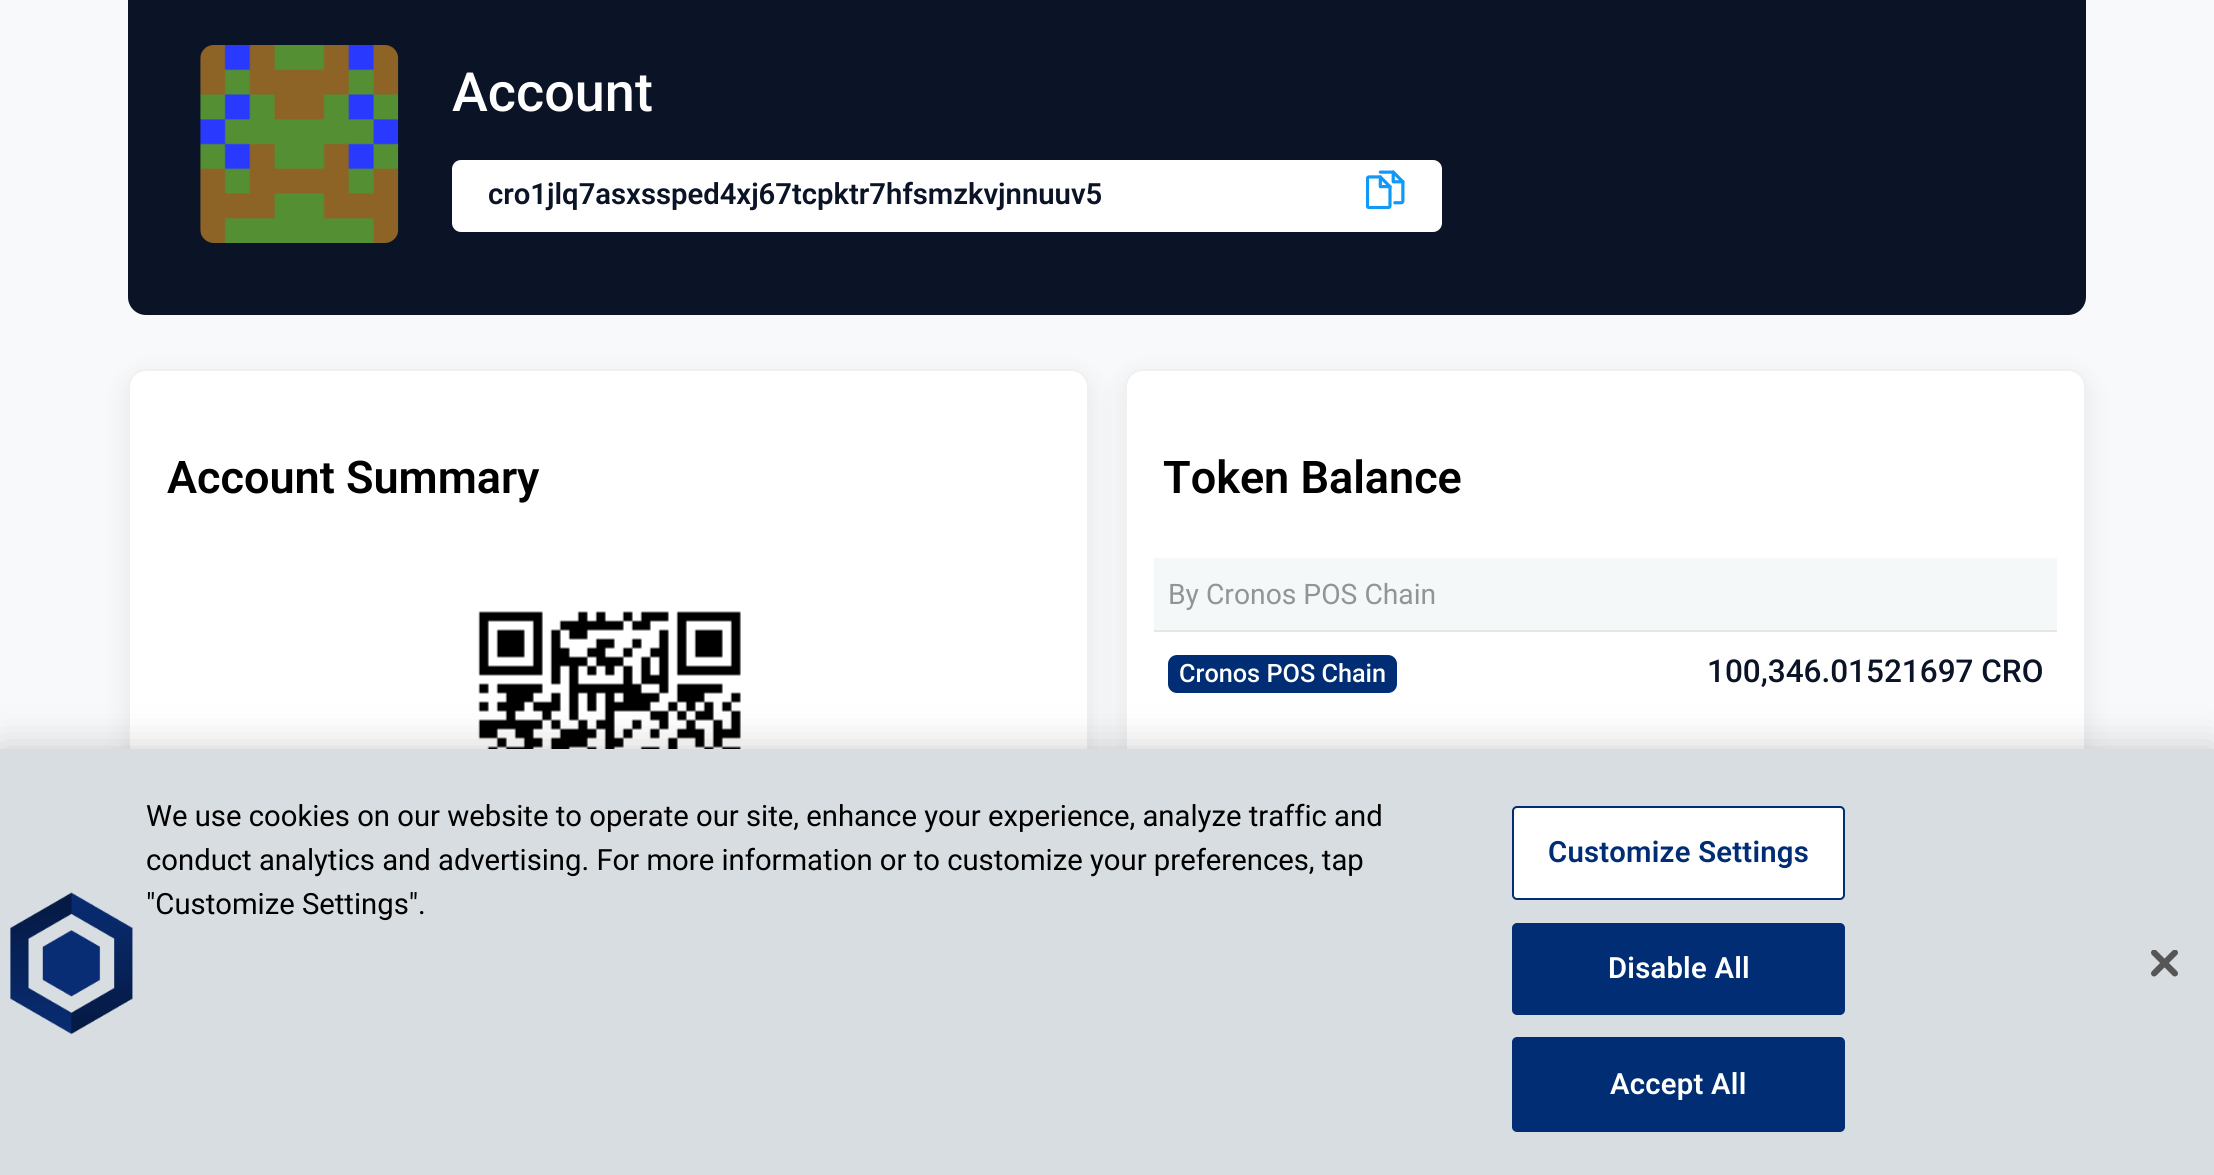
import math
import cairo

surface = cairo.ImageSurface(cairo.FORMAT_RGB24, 2214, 1175)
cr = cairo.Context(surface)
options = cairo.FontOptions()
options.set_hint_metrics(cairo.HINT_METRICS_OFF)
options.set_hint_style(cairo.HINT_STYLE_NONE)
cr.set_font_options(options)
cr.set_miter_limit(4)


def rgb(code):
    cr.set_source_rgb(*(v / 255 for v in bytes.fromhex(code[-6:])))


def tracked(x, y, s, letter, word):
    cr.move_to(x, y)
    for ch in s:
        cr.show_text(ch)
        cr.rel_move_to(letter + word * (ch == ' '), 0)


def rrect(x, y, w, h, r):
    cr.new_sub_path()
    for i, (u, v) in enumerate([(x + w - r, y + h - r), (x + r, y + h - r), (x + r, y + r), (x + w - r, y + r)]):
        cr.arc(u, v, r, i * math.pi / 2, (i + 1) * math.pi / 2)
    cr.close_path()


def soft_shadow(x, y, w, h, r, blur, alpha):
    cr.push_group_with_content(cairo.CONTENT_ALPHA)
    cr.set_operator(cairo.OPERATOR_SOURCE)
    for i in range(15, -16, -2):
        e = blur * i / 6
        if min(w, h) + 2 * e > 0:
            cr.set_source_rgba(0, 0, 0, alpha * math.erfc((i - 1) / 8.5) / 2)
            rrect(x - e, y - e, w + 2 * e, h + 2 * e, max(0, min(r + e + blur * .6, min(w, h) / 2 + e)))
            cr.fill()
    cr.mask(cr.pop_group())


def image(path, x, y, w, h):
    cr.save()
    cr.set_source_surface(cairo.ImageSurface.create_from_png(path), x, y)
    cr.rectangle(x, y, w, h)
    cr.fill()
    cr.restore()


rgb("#f7f9fa")
cr.paint()
rgb("#0b1426")
rrect(128, -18, 1958, 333, 18)
cr.fill()
image("img/1.png", 200, 45, 199, 198)
rgb("#ffffff")
rrect(452, 160, 990, 72, 9)
cr.fill()
image("img/2.png", 1366, 170, 39, 39)
rgb("#000000")
soft_shadow(122, 371, 974, 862, 25, 11, 0.05)
rgb("#ffffff")
rrect(129, 370, 959, 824, 17)
cr.fill_preserve()
rgb("#f0f0f0")
cr.stroke()
image("img/3.png", 478, 611, 263, 138)
rgb("#000000")
soft_shadow(1118, 371, 975, 504, 25, 11, 0.05)
rgb("#ffffff")
rrect(1126, 370, 959, 489, 17)
cr.fill_preserve()
rgb("#f0f0f0")
cr.stroke()
rgb("#f5f8f9")
cr.rectangle(1154, 558, 903, 72)
cr.fill()
rgb("#e6e6e6")
cr.rectangle(1154, 630, 903, 2)
cr.fill()
rgb("#012d74")
rrect(1168, 655, 229, 38, 9)
cr.fill()
rgb("#000000")
soft_shadow(0, 749, 2214, 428, 0, 20, 0.2)
rgb("#d7dde0")
cr.rectangle(0, 749, 2214, 426)
cr.fill()
image("img/4.png", 10, 892, 123, 143)
rgb("#ffffff")
rrect(1513, 807, 331, 92, 4)
cr.fill_preserve()
rgb("#002d74")
cr.stroke()
rrect(1513, 924, 331, 90, 4)
cr.fill_preserve()
cr.stroke()
rrect(1513, 1038, 331, 93, 4)
cr.fill_preserve()
cr.stroke()
image("img/5.png", 2151, 950, 27, 27)
cr.select_font_face("Roboto Medium")
cr.set_font_size(54)
rgb("#ffffff")
cr.move_to(452, 111)
cr.show_text("Account")
cr.select_font_face("Roboto SemiBold")
cr.set_font_size(29.25)
rgb("#0b1426")
cr.move_to(488, 204)
cr.show_text("cro1jlq7asxssped4xj67tcpktr7hfsmzkvjnnuuv5")
cr.set_font_size(45)
rgb("#000000")
cr.move_to(167, 493)
cr.show_text("Account Summary")
cr.move_to(1163, 493)
cr.show_text("Token Balance")
cr.select_font_face("Roboto")
cr.set_font_size(28.25)
rgb("#939595")
cr.move_to(1168, 604)
cr.show_text("By Cronos POS Chain")
cr.select_font_face("Roboto Medium")
cr.set_font_size(25.25)
rgb("#ffffff")
cr.move_to(1179, 682)
cr.show_text("Cronos POS Chain")
cr.set_font_size(31.5)
rgb("#0b1426")
cr.move_to(1707, 682)
cr.show_text("100,346.01521697 CRO")
cr.select_font_face("Roboto")
cr.set_font_size(29.25)
rgb("#000000")
for x, y, s in [
    (146, 826, "We use cookies on our website to operate our site, enhance your experience, analyze traffic and"),
    (146, 870, "conduct analytics and advertising. For more information or to customize your preferences, tap"),
    (146, 914, "\"Customize Settings\"."),
]:
    cr.move_to(x, y)
    cr.show_text(s)
cr.select_font_face("Roboto SemiBold")
rgb("#002d74")
tracked(1548, 862, "Customize Settings", 0.25, 0)
rgb("#ffffff")
tracked(1608, 978, "Disable All", 0.25, 0)
tracked(1610, 1094, "Accept All", 0.25, 0)
surface.write_to_png("page.png")
